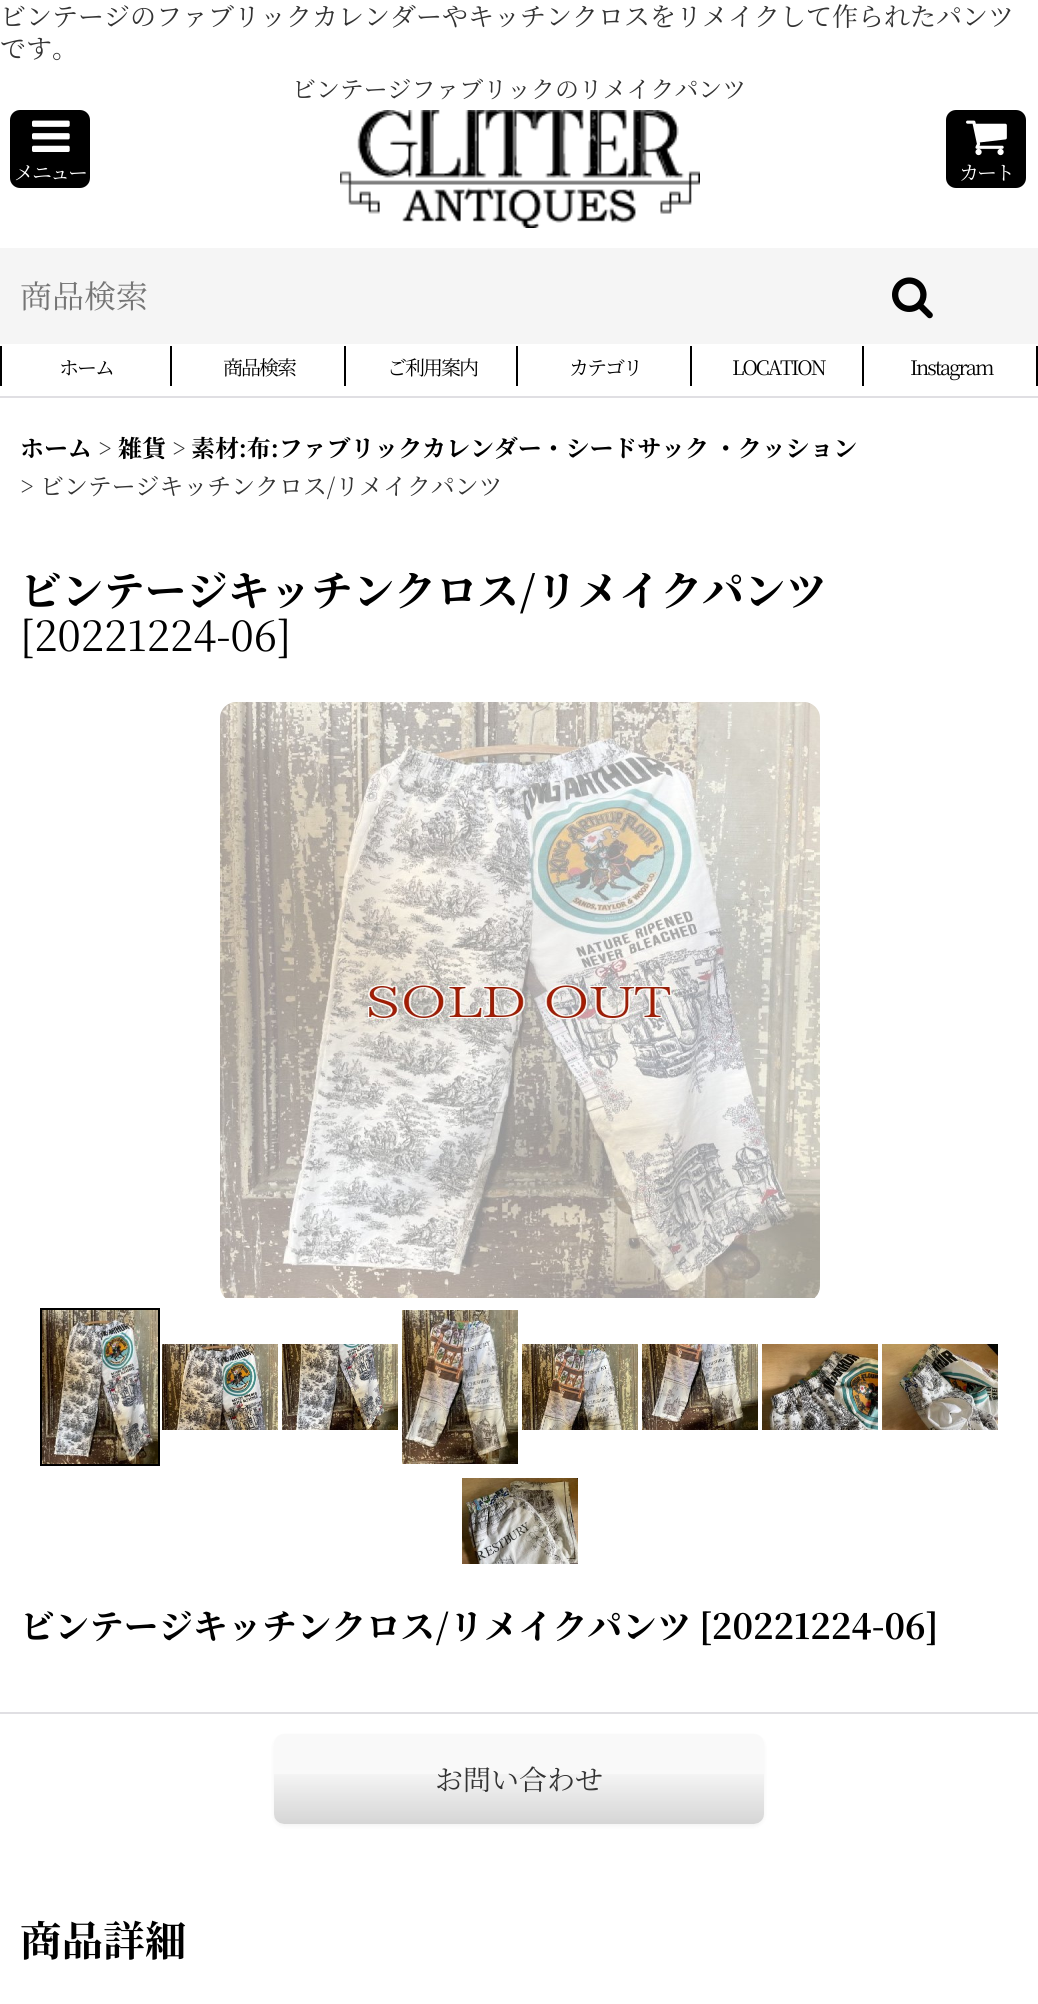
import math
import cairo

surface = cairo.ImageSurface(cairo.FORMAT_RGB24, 1038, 2004)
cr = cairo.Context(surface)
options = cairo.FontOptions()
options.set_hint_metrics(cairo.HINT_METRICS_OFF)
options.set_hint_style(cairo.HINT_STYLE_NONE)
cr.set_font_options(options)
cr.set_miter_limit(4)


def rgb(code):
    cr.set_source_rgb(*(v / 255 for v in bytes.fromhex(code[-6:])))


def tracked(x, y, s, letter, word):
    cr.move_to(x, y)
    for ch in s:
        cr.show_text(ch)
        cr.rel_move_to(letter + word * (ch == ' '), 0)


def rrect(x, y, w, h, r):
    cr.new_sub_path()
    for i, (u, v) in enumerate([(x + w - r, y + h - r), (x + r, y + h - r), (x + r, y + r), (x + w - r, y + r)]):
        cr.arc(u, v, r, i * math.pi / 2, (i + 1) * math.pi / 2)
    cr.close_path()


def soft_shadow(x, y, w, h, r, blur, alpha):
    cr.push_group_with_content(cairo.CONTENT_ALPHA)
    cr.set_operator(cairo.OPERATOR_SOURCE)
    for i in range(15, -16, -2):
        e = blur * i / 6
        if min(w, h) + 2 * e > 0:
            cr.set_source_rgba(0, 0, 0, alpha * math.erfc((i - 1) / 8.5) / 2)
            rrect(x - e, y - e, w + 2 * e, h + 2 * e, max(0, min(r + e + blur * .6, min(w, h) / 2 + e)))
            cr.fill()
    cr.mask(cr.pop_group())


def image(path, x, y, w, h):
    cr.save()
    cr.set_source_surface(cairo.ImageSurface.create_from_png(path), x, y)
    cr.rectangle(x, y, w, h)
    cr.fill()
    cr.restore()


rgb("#ffffff")
cr.paint()
rgb("#000000")
rrect(10, 110, 80, 78, 10)
cr.fill()
image("img/1.png", 32, 120, 38, 32)
image("img/2.png", 340, 110, 360, 118)
rrect(946, 110, 80, 78, 10)
cr.fill()
image("img/3.png", 966, 120, 41, 36)
rgb("#f5f5f5")
cr.rectangle(0, 248, 1038, 96)
cr.fill()
image("img/4.png", 892, 277, 41, 42)
rgb("#e0dfe3")
cr.rectangle(0, 396, 1038, 2)
cr.fill()
image("img/5.png", 0, 346, 172, 40)
for x, y, w, h, color in [
    (344, 346, 2, 40, "#000000"),
    (516, 346, 2, 40, "#000000"),
    (690, 346, 2, 40, "#000000"),
    (862, 346, 2, 40, "#000000"),
    (1036, 346, 2, 40, "#000000"),
]:
    rgb(color)
    cr.rectangle(x, y, w, h)
    cr.fill()
image("img/6.png", 220, 702, 600, 596)
cr.rectangle(41, 1309, 118, 156)
cr.stroke()
image("img/7.png", 42, 1310, 116, 154)
image("img/8.png", 162, 1344, 116, 86)
image("img/9.png", 282, 1344, 116, 86)
image("img/10.png", 402, 1310, 116, 154)
image("img/11.png", 522, 1344, 116, 86)
image("img/12.png", 642, 1344, 116, 86)
image("img/13.png", 762, 1344, 116, 86)
image("img/14.png", 882, 1344, 116, 86)
image("img/15.png", 462, 1478, 116, 86)
rgb("#e0dfe3")
cr.rectangle(0, 1712, 1038, 2)
cr.fill()
rgb("#000000")
soft_shadow(274, 1736, 490, 90, 10, 2, 0.05)
rgb("#f9f9f9")
rrect(274, 1734, 490, 90, 10)
cr.fill()
image("img/16.png", 274, 1774, 490, 50)
cr.select_font_face("Noto Serif JP")
cr.set_font_size(26)
rgb("#333333")
cr.move_to(0, 26)
cr.show_text("ビンテージのファブリックカレンダーやキッチンクロスをリメイクして作られたパンツ")
cr.move_to(0, 58)
cr.show_text("です。")
cr.set_font_size(23.9)
cr.move_to(292, 98)
cr.show_text("ビンテージファブリックのリメイクパンツ")
cr.set_font_size(20)
rgb("#ffffff")
tracked(14, 180, "メニュー", -2, 0)
tracked(959, 180, "カート", -2, 0)
cr.set_font_size(32)
rgb("#757575")
cr.move_to(20, 308)
cr.show_text("商品検索")
cr.set_font_size(20)
rgb("#000000")
for x, y, s in [
    (59, 375, "ホーム"),
    (223, 375, "商品検索"),
    (387, 375, "ご利用案内"),
    (569, 375, "カテゴリ"),
    (732, 375, "LOCATION"),
    (910, 375, "Instagram"),
]:
    tracked(x, y, s, -2, 0)
cr.select_font_face("Noto Serif JP", cairo.FONT_SLANT_NORMAL, cairo.FONT_WEIGHT_BOLD)
cr.set_font_size(23.9)
cr.move_to(20, 457)
cr.show_text("ホーム")
cr.select_font_face("Noto Serif JP")
rgb("#333333")
cr.move_to(98, 457)
cr.show_text(">")
cr.select_font_face("Noto Serif JP", cairo.FONT_SLANT_NORMAL, cairo.FONT_WEIGHT_BOLD)
rgb("#000000")
cr.move_to(118, 457)
cr.show_text("雑貨")
cr.select_font_face("Noto Serif JP")
rgb("#333333")
cr.move_to(172, 457)
cr.show_text(">")
cr.select_font_face("Noto Serif JP", cairo.FONT_SLANT_NORMAL, cairo.FONT_WEIGHT_BOLD)
rgb("#000000")
tracked(191, 457, "素材:布:ファブリックカレンダー・シードサック ・クッション", 0, -1)
cr.select_font_face("Noto Serif JP")
rgb("#333333")
cr.move_to(20, 495)
cr.show_text("> ビンテージキッチンクロス/リメイクパンツ")
cr.select_font_face("Noto Serif JP", cairo.FONT_SLANT_NORMAL, cairo.FONT_WEIGHT_BOLD)
cr.set_font_size(41.6)
rgb("#000000")
cr.move_to(20, 606)
cr.show_text("ビンテージキッチンクロス/リメイクパンツ")
cr.select_font_face("Noto Serif JP")
cr.move_to(20, 651)
cr.show_text("[20221224-06]")
cr.select_font_face("Noto Serif JP", cairo.FONT_SLANT_NORMAL, cairo.FONT_WEIGHT_BOLD)
cr.set_font_size(34.6)
cr.move_to(20, 1639)
cr.show_text("ビンテージキッチンクロス/リメイクパンツ")
cr.move_to(699, 1639)
cr.show_text("[20221224-06]")
cr.select_font_face("Noto Serif JP")
cr.set_font_size(28)
rgb("#333333")
cr.move_to(435, 1790)
cr.show_text("お問い合わせ")
cr.select_font_face("Noto Serif JP", cairo.FONT_SLANT_NORMAL, cairo.FONT_WEIGHT_BOLD)
cr.set_font_size(41.6)
rgb("#000000")
cr.move_to(20, 1956)
cr.show_text("商品詳細")
surface.write_to_png("page.png")
